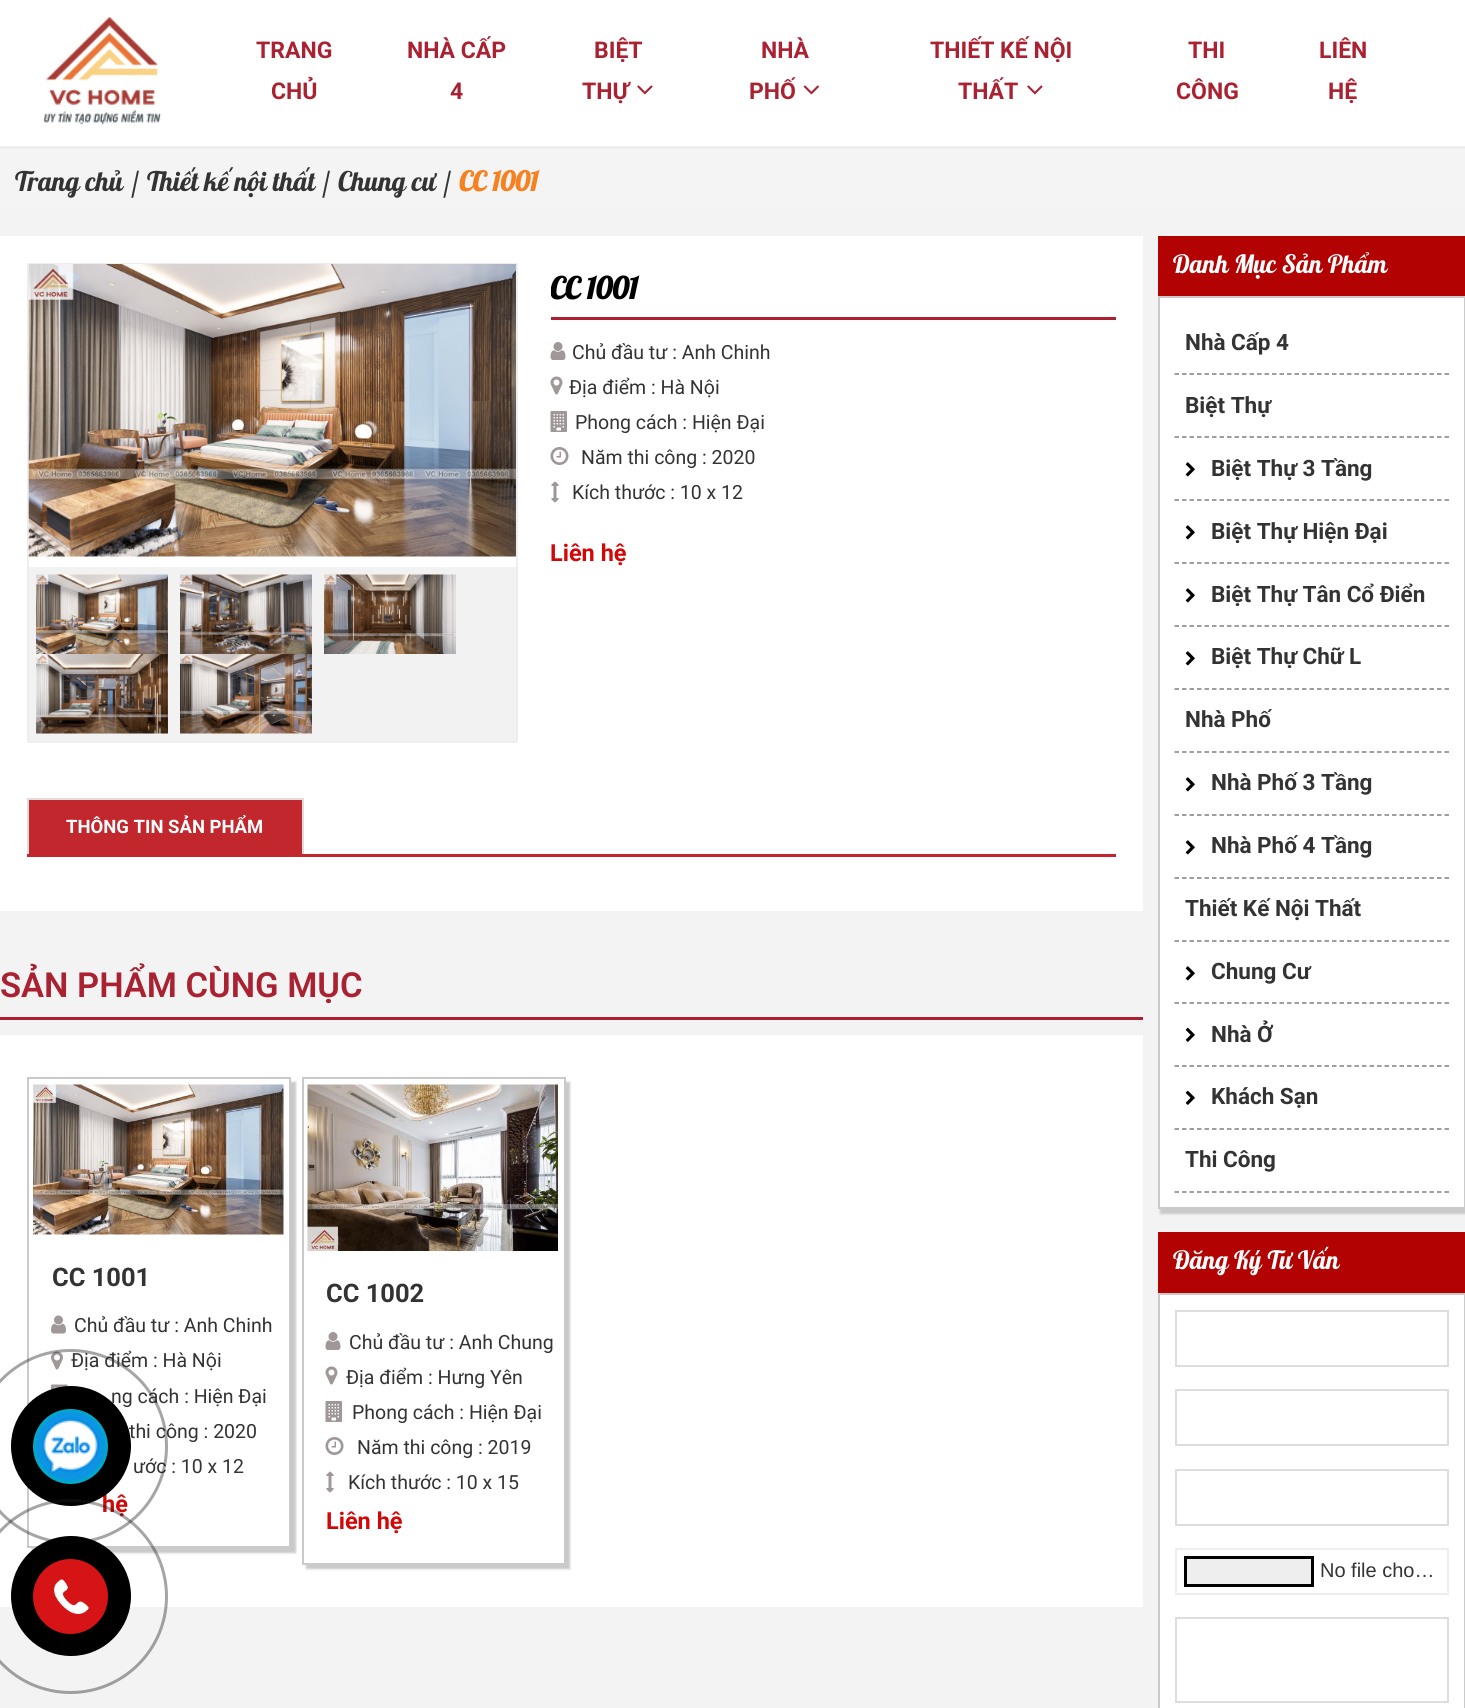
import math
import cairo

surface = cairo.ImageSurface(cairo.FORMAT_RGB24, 1465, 1708)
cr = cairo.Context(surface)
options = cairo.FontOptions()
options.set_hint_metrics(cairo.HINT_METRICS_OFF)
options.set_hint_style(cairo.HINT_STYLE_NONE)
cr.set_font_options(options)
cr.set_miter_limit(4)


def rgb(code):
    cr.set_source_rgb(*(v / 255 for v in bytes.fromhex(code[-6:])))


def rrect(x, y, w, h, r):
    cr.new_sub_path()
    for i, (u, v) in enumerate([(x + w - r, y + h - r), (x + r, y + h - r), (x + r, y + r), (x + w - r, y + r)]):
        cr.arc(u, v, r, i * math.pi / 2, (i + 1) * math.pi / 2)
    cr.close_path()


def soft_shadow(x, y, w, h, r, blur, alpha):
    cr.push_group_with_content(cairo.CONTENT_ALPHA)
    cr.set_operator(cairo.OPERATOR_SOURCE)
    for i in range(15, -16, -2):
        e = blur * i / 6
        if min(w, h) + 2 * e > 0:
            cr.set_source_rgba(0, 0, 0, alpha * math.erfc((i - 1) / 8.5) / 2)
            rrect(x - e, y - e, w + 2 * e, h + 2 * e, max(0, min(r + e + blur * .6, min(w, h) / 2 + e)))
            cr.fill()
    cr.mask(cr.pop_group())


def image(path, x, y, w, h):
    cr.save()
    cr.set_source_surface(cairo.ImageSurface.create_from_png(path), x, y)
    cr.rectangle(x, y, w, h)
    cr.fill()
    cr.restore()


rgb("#ffffff")
cr.paint()
rgb("#eeeeee")
cr.rectangle(0, 146, 1465, 3)
cr.fill()
image("img/1.png", 43, 17, 119, 108)
image("img/2.png", 637, 85, 16, 10)
image("img/3.png", 803, 85, 16, 10)
image("img/2.png", 1027, 85, 16, 10)
for x, y, w, h, color in [
    (0, 149, 1465, 57, "#f4f4f4"),
    (0, 206, 1465, 1502, "#f3f3f3"),
    (0, 236, 1143, 675, "#ffffff"),
]:
    rgb(color)
    cr.rectangle(x, y, w, h)
    cr.fill()
cr.rectangle(28, 264, 489, 478)
rgb("#eeeeee")
cr.stroke()
image("img/4.png", 28, 264, 488, 293)
rgb("#f2f2f2")
cr.rectangle(29, 567, 487, 174)
cr.fill()
image("img/5.png", 36, 574, 132, 80)
image("img/6.png", 180, 574, 132, 80)
image("img/7.png", 324, 574, 132, 80)
image("img/8.png", 36, 654, 132, 80)
image("img/9.png", 180, 654, 132, 80)
rgb("#aa2231")
cr.rectangle(551, 317, 565, 3)
cr.fill()
image("img/10.png", 550, 342, 16, 18)
image("img/11.png", 550, 376, 13, 19)
image("img/12.png", 550, 411, 17, 21)
image("img/13.png", 550, 447, 19, 18)
image("img/14.png", 551, 481, 8, 22)
for x, y, w, h, color in [
    (27, 854, 1089, 3, "#c1272d"),
    (29, 800, 273, 54, "#c1272d"),
    (27, 798, 276, 2, "#dddddd"),
    (302, 798, 2, 56, "#dddddd"),
    (27, 798, 2, 56, "#dddddd"),
    (0, 1017, 1143, 3, "#aa2231"),
    (0, 1035, 1143, 572, "#ffffff"),
]:
    rgb(color)
    cr.rectangle(x, y, w, h)
    cr.fill()
cr.save()
cr.set_fill_rule(cairo.FILL_RULE_EVEN_ODD)
cr.new_path()
cr.move_to(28, 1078)
cr.line_to(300, 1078)
cr.line_to(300, 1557)
cr.line_to(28, 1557)
cr.close_path()
cr.move_to(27, 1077)
cr.line_to(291, 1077)
cr.line_to(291, 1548)
cr.line_to(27, 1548)
cr.close_path()
cr.clip()
rgb("#cacaca")
soft_shadow(32, 1082, 264, 471, 0, 1, 1)
cr.restore()
cr.rectangle(28, 1078, 262, 469)
rgb("#cacaca")
cr.stroke()
image("img/15.png", 33, 1084, 251, 151)
image("img/16.png", 51, 1315, 15, 19)
image("img/17.png", 51, 1351, 12, 19)
image("img/18.png", 51, 1384, 17, 6)
cr.save()
cr.set_fill_rule(cairo.FILL_RULE_EVEN_ODD)
cr.new_path()
cr.move_to(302, 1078)
cr.line_to(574, 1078)
cr.line_to(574, 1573)
cr.line_to(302, 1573)
cr.close_path()
cr.move_to(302, 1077)
cr.line_to(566, 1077)
cr.line_to(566, 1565)
cr.line_to(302, 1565)
cr.close_path()
cr.clip()
rgb("#cacaca")
soft_shadow(306, 1082, 264, 487, 0, 1, 1)
cr.restore()
cr.rectangle(303, 1078, 262, 486)
cr.stroke()
image("img/19.png", 307, 1084, 251, 167)
image("img/10.png", 325, 1332, 16, 18)
image("img/11.png", 325, 1366, 13, 19)
image("img/12.png", 325, 1401, 17, 21)
image("img/13.png", 325, 1437, 19, 18)
image("img/14.png", 326, 1471, 8, 22)
rgb("#b30202")
cr.rectangle(1158, 236, 307, 60)
cr.fill()
rgb("#cacaca")
soft_shadow(1160, 300, 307, 914, 0, 1, 1)
rgb("#ffffff")
cr.rectangle(1159, 297, 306, 911)
cr.fill_preserve()
rgb("#cacaca")
cr.stroke()
cr.new_path()
cr.move_to(1174.5, 374)
cr.line_to(1449, 374)
rgb("#808080")
cr.set_line_width(1.5)
cr.set_dash([4.5, 3])
cr.stroke()
cr.new_path()
cr.move_to(1174.5, 437)
cr.line_to(1449, 437)
cr.stroke()
cr.new_path()
cr.move_to(1174.5, 500)
cr.line_to(1449, 500)
cr.stroke()
image("img/20.png", 1185, 462, 10, 15)
cr.new_path()
cr.move_to(1174.5, 563)
cr.line_to(1449, 563)
cr.stroke()
image("img/20.png", 1185, 525, 10, 15)
cr.new_path()
cr.move_to(1174.5, 626)
cr.line_to(1449, 626)
cr.stroke()
image("img/20.png", 1185, 588, 10, 15)
cr.new_path()
cr.move_to(1174.5, 689)
cr.line_to(1449, 689)
cr.stroke()
image("img/20.png", 1185, 651, 10, 15)
cr.new_path()
cr.move_to(1174.5, 752)
cr.line_to(1449, 752)
cr.stroke()
cr.new_path()
cr.move_to(1174.5, 815)
cr.line_to(1449, 815)
cr.stroke()
image("img/20.png", 1185, 777, 10, 15)
cr.new_path()
cr.move_to(1174.5, 878)
cr.line_to(1449, 878)
cr.stroke()
image("img/20.png", 1185, 840, 10, 15)
cr.new_path()
cr.move_to(1174.5, 941)
cr.line_to(1449, 941)
cr.stroke()
cr.new_path()
cr.move_to(1174.5, 1003)
cr.line_to(1449, 1003)
cr.stroke()
image("img/20.png", 1185, 966, 10, 15)
cr.new_path()
cr.move_to(1174.5, 1066)
cr.line_to(1449, 1066)
cr.stroke()
image("img/21.png", 1185, 1027, 10, 15)
cr.new_path()
cr.move_to(1174.5, 1129)
cr.line_to(1449, 1129)
cr.stroke()
image("img/21.png", 1185, 1090, 10, 15)
cr.new_path()
cr.move_to(1174.5, 1192)
cr.line_to(1449, 1192)
cr.stroke()
rgb("#b30202")
cr.rectangle(1158, 1232, 307, 61)
cr.fill()
rgb("#ffffff")
cr.rectangle(1159, 1294, 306, 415)
cr.fill_preserve()
rgb("#cacaca")
cr.set_line_width(2)
cr.set_dash([])
cr.stroke()
cr.rectangle(1176, 1311, 272, 55)
rgb("#dddddd")
cr.stroke()
cr.rectangle(1176, 1390, 272, 55)
cr.stroke()
cr.rectangle(1176, 1470, 272, 55)
cr.stroke()
cr.rectangle(1176, 1549, 272, 45)
rgb("#eeeeee")
cr.stroke()
cr.rectangle(1185.5, 1557.5, 127, 28)
cr.fill_preserve()
rgb("#000000")
cr.set_line_width(3)
cr.stroke()
cr.rectangle(1176, 1618, 272, 84)
rgb("#dddddd")
cr.set_line_width(2)
cr.stroke()
cr.select_font_face("Roboto", cairo.FONT_SLANT_NORMAL, cairo.FONT_WEIGHT_BOLD)
cr.set_font_size(23)
rgb("#aa2231")
for x, y, s in [
    (256, 58, "TRANG"),
    (271, 99, "CHỦ"),
    (407, 58, "NHÀ CẤP"),
    (450, 99, "4"),
    (594, 58, "BIỆT"),
    (582, 99, "THỰ"),
    (761, 58, "NHÀ"),
    (749, 99, "PHỐ"),
    (930, 58, "THIẾT KẾ NỘI"),
    (958, 99, "THẤT"),
    (1188, 58, "THI"),
    (1176, 99, "CÔNG"),
    (1319, 58, "LIÊN"),
    (1328, 99, "HỆ"),
]:
    cr.move_to(x, y)
    cr.show_text(s)
cr.select_font_face("Pattaya")
cr.set_font_size(27)
rgb("#333333")
for x, y, s in [
    (15, 191, "Trang chủ"),
    (131, 191, "/"),
    (147, 191, "Thiết kế nội thất"),
    (322, 191, "/"),
    (338, 191, "Chung cư"),
    (443, 191, "/"),
]:
    cr.move_to(x, y)
    cr.show_text(s)
cr.select_font_face("Pattaya", cairo.FONT_SLANT_NORMAL, cairo.FONT_WEIGHT_BOLD)
rgb("#f68121")
cr.move_to(459, 191)
cr.show_text("CC 1001")
cr.save()
cr.rectangle(551, 263, 565, 54)
cr.clip()
cr.set_font_size(30)
rgb("#000000")
cr.move_to(550, 299)
cr.show_text("CC 1001")
cr.restore()
cr.select_font_face("Roboto")
cr.set_font_size(19.5)
rgb("#333333")
for x, y, s in [
    (572, 359, "Chủ đầu tư : Anh Chinh"),
    (569, 394, "Địa điểm : Hà Nội"),
    (575, 429, "Phong cách : Hiện Đại"),
    (581, 464, "Năm thi công : 2020"),
    (572, 499, "Kích thước : 10 x 12"),
]:
    cr.move_to(x, y)
    cr.show_text(s)
cr.select_font_face("Roboto", cairo.FONT_SLANT_NORMAL, cairo.FONT_WEIGHT_BOLD)
cr.set_font_size(23.5)
rgb("#d20707")
cr.move_to(550, 561)
cr.show_text("Liên hệ")
cr.set_font_size(18.5)
rgb("#ffffff")
cr.move_to(66, 833)
cr.show_text("THÔNG TIN SẢN PHẨM")
cr.select_font_face("Roboto SemiBold")
cr.set_font_size(34.5)
rgb("#aa2231")
cr.move_to(0, 997)
cr.show_text("SẢN PHẨM CÙNG MỤC")
cr.select_font_face("Roboto", cairo.FONT_SLANT_NORMAL, cairo.FONT_WEIGHT_BOLD)
cr.set_font_size(25.5)
rgb("#333333")
cr.move_to(52, 1286)
cr.show_text("CC 1001")
cr.select_font_face("Roboto")
cr.set_font_size(19.5)
for x, y, s in [
    (74, 1332, "Chủ đầu tư : Anh Chinh"),
    (71, 1367, "Địa điểm : Hà Nội"),
    (111, 1403, "ng cách : Hiện Đại"),
    (129, 1438, "thi công : 2020"),
    (133, 1473, "ước : 10 x 12"),
]:
    cr.move_to(x, y)
    cr.show_text(s)
cr.select_font_face("Roboto", cairo.FONT_SLANT_NORMAL, cairo.FONT_WEIGHT_BOLD)
cr.set_font_size(23.5)
rgb("#d20707")
cr.move_to(102, 1512)
cr.show_text("hệ")
cr.set_font_size(25.5)
rgb("#333333")
cr.move_to(326, 1302)
cr.show_text("CC 1002")
cr.select_font_face("Roboto")
cr.set_font_size(19.5)
for x, y, s in [
    (349, 1349, "Chủ đầu tư : Anh Chung"),
    (346, 1384, "Địa điểm : Hưng Yên"),
    (352, 1419, "Phong cách : Hiện Đại"),
    (357, 1454, "Năm thi công : 2019"),
    (348, 1489, "Kích thước : 10 x 15"),
]:
    cr.move_to(x, y)
    cr.show_text(s)
cr.select_font_face("Roboto", cairo.FONT_SLANT_NORMAL, cairo.FONT_WEIGHT_BOLD)
cr.set_font_size(23.5)
rgb("#d20707")
cr.move_to(326, 1529)
cr.show_text("Liên hệ")
cr.select_font_face("Pattaya")
cr.set_font_size(25.25)
rgb("#ffffff")
cr.move_to(1173, 273)
cr.show_text("Danh Mục Sản Phẩm")
cr.select_font_face("Roboto", cairo.FONT_SLANT_NORMAL, cairo.FONT_WEIGHT_BOLD)
cr.set_font_size(22.5)
rgb("#333333")
for x, y, s in [
    (1185, 350, "Nhà Cấp 4"),
    (1185, 413, "Biệt Thự"),
    (1211, 476, "Biệt Thự 3 Tầng"),
    (1211, 539, "Biệt Thự Hiện Đại"),
    (1211, 602, "Biệt Thự Tân Cổ Điển"),
    (1211, 664, "Biệt Thự Chữ L"),
    (1185, 727, "Nhà Phố"),
    (1211, 790, "Nhà Phố 3 Tầng"),
    (1211, 853, "Nhà Phố 4 Tầng"),
    (1185, 916, "Thiết Kế Nội Thất"),
    (1211, 979, "Chung Cư"),
    (1211, 1042, "Nhà Ở"),
    (1211, 1104, "Khách Sạn"),
    (1185, 1167, "Thi Công"),
]:
    cr.move_to(x, y)
    cr.show_text(s)
cr.select_font_face("Pattaya")
cr.set_font_size(25.25)
rgb("#ffffff")
cr.move_to(1173, 1269)
cr.show_text("Đăng Ký Tư Vấn")
cr.select_font_face("Liberation Sans")
cr.set_font_size(20)
rgb("#333333")
cr.move_to(1320, 1577)
cr.show_text("No file cho…")
cr.new_path()
cr.arc(70.5, 1446.5, 96, 0, 2 * math.pi)
cr.set_source_rgba(0.118, 0.118, 0.118, 0.4)
cr.set_line_width(3)
cr.stroke()
rgb("#000000")
cr.arc(71, 1446, 60, 0, 2 * math.pi)
cr.fill()
rgb("#00a9ca")
cr.arc(70.5, 1446.5, 37.5, 0, 2 * math.pi)
cr.fill()
image("img/22.png", 36, 1411, 69, 70)
cr.arc(70.5, 1596.5, 96, 0, 2 * math.pi)
cr.set_source_rgba(0.118, 0.118, 0.118, 0.4)
cr.stroke()
rgb("#000000")
cr.arc(71, 1596, 60, 0, 2 * math.pi)
cr.fill()
rgb("#d71415")
cr.arc(70.5, 1596.5, 37.5, 0, 2 * math.pi)
cr.fill()
image("img/23.png", 54, 1579, 35, 35)
surface.write_to_png("page.png")
